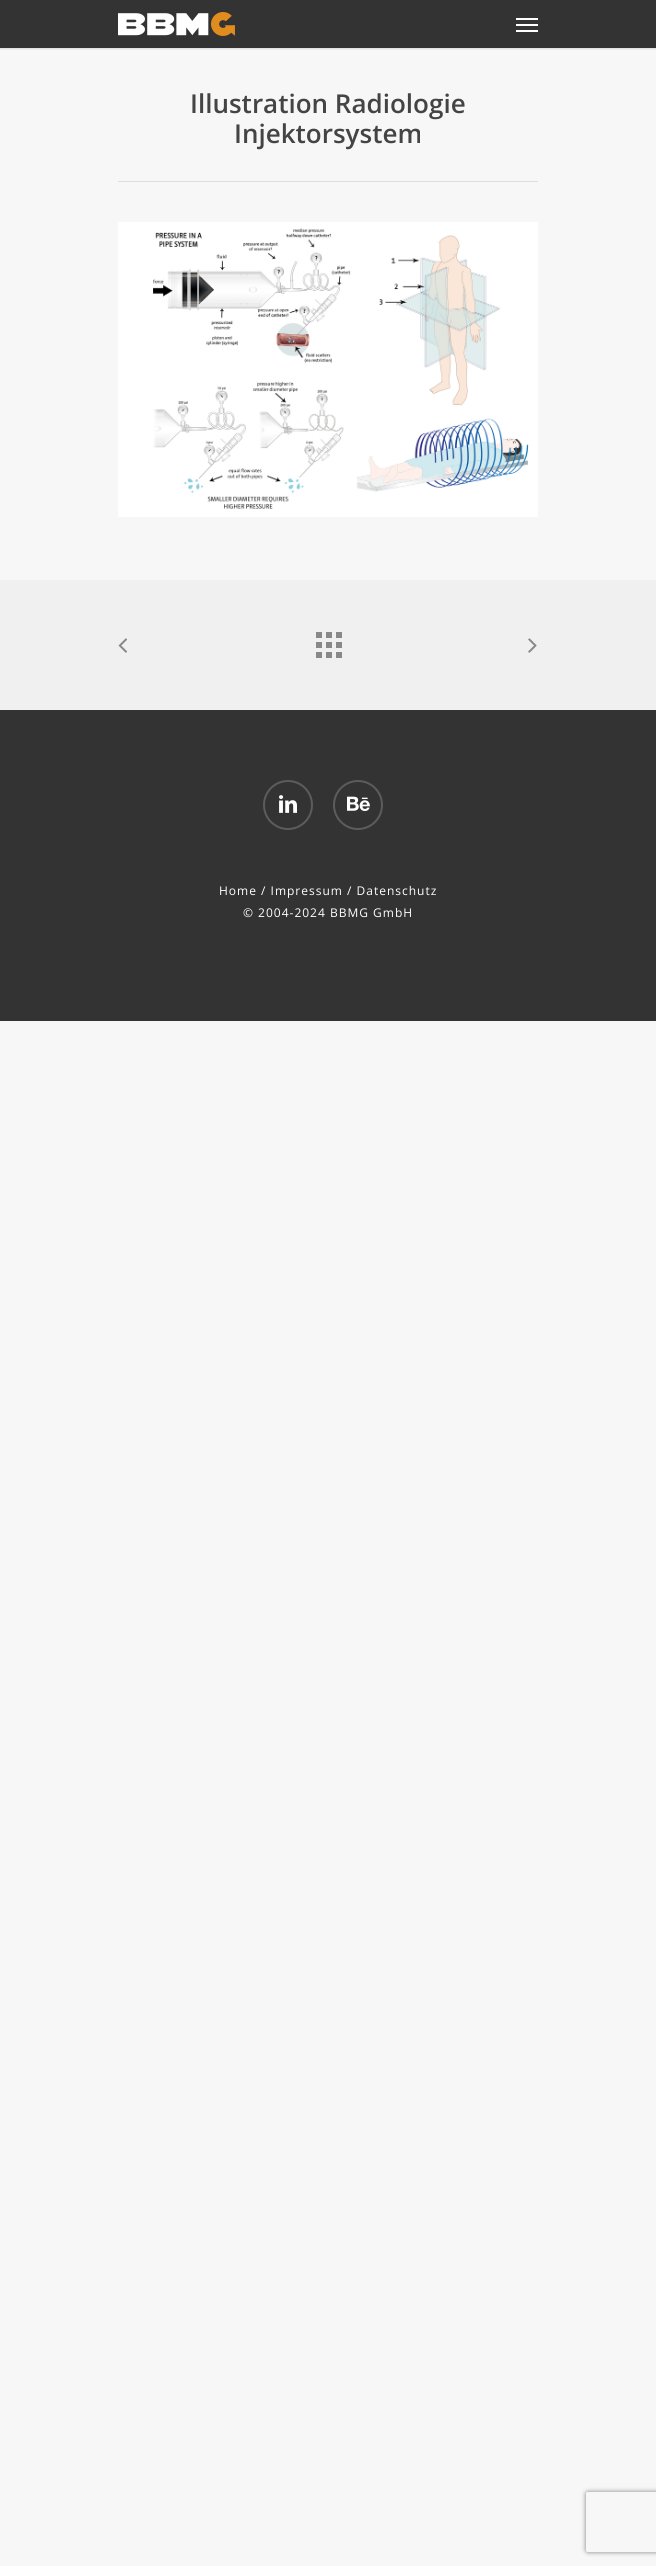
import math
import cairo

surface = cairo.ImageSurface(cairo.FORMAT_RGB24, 656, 2566)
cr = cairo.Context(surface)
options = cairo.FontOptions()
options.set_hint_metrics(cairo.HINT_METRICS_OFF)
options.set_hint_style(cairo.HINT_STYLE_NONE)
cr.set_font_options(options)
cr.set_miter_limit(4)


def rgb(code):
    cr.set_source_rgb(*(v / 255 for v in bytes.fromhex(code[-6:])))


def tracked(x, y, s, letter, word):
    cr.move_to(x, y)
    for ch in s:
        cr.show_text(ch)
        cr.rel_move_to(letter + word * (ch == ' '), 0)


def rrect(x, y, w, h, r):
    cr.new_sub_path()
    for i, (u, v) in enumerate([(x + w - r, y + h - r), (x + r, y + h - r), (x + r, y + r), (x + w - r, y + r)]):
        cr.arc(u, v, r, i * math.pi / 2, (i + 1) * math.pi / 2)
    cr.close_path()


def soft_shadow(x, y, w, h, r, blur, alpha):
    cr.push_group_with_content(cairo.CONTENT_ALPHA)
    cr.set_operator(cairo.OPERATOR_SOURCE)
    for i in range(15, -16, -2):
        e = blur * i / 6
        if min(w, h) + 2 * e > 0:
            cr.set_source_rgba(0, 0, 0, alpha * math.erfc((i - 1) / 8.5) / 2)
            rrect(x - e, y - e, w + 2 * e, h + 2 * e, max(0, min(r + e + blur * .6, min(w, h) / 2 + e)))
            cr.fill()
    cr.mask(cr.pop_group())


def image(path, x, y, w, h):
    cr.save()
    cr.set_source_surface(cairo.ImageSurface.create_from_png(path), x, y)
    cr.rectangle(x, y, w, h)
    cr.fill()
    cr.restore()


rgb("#f7f7f7")
cr.paint()
rgb("#333333")
cr.rectangle(0, 0, 656, 48)
cr.fill()
cr.save()
cr.rectangle(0, 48, 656, 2)
cr.clip()
rgb("#000000")
soft_shadow(0, 0, 656, 48, 0, 1.5, 0.22)
cr.restore()
image("img/1.png", 118, 12, 117, 24)
for x, y, w, h, color in [
    (516, 18, 22, 2, "#ffffff"),
    (516, 30, 22, 2, "#ffffff"),
    (516, 24, 22, 2, "#ffffff"),
    (118, 181, 420, 1, "#dddddd"),
]:
    rgb(color)
    cr.rectangle(x, y, w, h)
    cr.fill()
image("img/2.png", 118, 222, 420, 295)
for x, y, w, h, color in [
    (0, 580, 656, 130, "#f0f0f0"),
    (336, 652, 6, 6, "#888888"),
    (326, 652, 6, 6, "#888888"),
    (316, 632, 6, 6, "#888888"),
    (326, 632, 6, 6, "#888888"),
    (336, 632, 6, 6, "#888888"),
    (336, 642, 6, 6, "#888888"),
    (316, 652, 6, 6, "#888888"),
    (316, 642, 6, 6, "#888888"),
    (326, 642, 6, 6, "#888888"),
]:
    rgb(color)
    cr.rectangle(x, y, w, h)
    cr.fill()
image("img/3.png", 118, 638, 9, 15)
image("img/4.png", 528, 638, 9, 15)
rgb("#333333")
cr.rectangle(0, 710, 656, 311)
cr.fill()
image("img/5.png", 279, 795, 18, 18)
cr.arc(288, 805, 24, 0, 2 * math.pi)
rgb("#5c5c5c")
cr.stroke()
image("img/6.png", 347, 796, 23, 15)
cr.arc(358, 805, 24, 0, 2 * math.pi)
cr.stroke()
cr.save()
cr.set_fill_rule(cairo.FILL_RULE_EVEN_ODD)
cr.new_path()
cr.move_to(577, 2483)
cr.line_to(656, 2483)
cr.line_to(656, 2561)
cr.line_to(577, 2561)
cr.close_path()
cr.move_to(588, 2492)
cr.line_to(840, 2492)
cr.curve_to(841, 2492, 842, 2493, 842, 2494)
cr.line_to(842, 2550)
cr.curve_to(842, 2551, 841, 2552, 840, 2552)
cr.line_to(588, 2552)
cr.curve_to(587, 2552, 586, 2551, 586, 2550)
cr.line_to(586, 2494)
cr.curve_to(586, 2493, 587, 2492, 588, 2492)
cr.close_path()
cr.clip()
rgb("#808080")
soft_shadow(586, 2492, 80, 60, 2, 2.5, 1)
cr.restore()
cr.select_font_face("Open Sans SemiBold")
cr.set_font_size(26)
rgb("#444444")
cr.move_to(190, 113)
cr.show_text("Illustration Radiologie")
cr.move_to(234, 143)
cr.show_text("Injektorsystem")
cr.select_font_face("Open Sans")
cr.set_font_size(12)
rgb("#ffffff")
tracked(219, 895, "Home / Impressum / Datenschutz", 1, 0)
tracked(243, 917, "© 2004-2024 BBMG GmbH", 1, 0)
surface.write_to_png("page.png")
